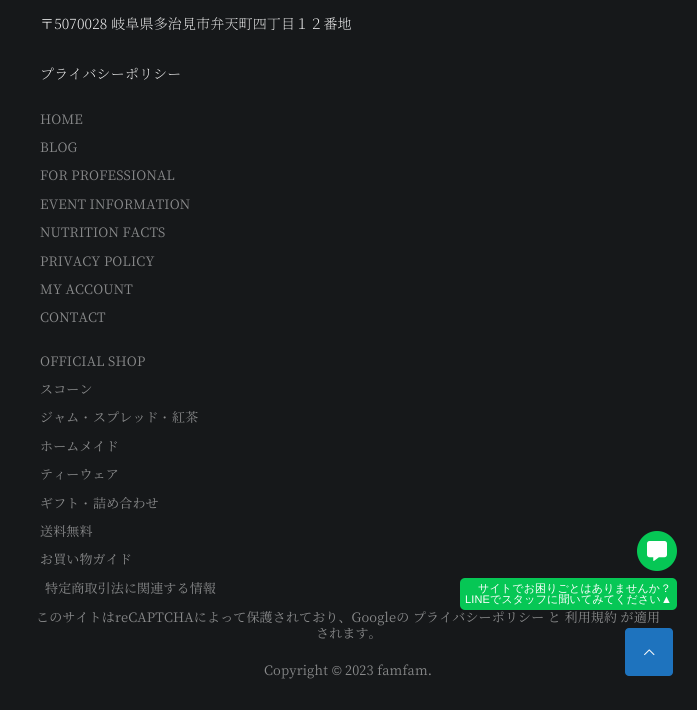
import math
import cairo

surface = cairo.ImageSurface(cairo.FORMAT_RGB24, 697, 710)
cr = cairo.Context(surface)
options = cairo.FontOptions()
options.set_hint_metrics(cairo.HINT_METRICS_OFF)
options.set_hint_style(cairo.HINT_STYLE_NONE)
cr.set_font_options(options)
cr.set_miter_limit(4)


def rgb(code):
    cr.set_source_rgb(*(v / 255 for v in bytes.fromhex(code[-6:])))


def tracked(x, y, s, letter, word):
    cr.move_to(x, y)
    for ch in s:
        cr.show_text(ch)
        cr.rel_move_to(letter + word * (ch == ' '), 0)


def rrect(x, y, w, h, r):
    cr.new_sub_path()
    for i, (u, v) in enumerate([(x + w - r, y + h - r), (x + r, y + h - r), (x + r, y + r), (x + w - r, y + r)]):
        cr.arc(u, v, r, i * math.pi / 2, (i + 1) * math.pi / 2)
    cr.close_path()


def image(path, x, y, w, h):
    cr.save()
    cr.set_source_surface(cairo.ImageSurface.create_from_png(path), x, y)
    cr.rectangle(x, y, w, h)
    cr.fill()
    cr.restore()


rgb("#16181a")
cr.paint()
rgb("#06c755")
cr.arc(657, 551, 20, 0, 2 * math.pi)
cr.fill()
image("img/1.png", 647, 541, 20, 20)
rrect(460, 578, 217, 32, 5)
cr.fill()
rgb("#1e73be")
rrect(625, 628, 48, 48, 4)
cr.fill()
image("img/2.png", 644, 649, 11, 7)
cr.select_font_face("Noto Serif JP ExtraLight")
cr.set_font_size(14)
rgb("#ffffff")
tracked(40, 29, "〒5070028 岐阜県多治見市弁天町四丁目１２番地", 0.15, 0)
tracked(40, 79, "プライバシーポリシー", 0.15, 0)
cr.select_font_face("Noto Serif JP")
cr.set_font_size(13)
rgb("#8b8c8d")
for x, y, s in [
    (40, 124, "HOME"),
    (40, 152, "BLOG"),
    (40, 180, "FOR PROFESSIONAL"),
    (40, 209, "EVENT INFORMATION"),
    (40, 237, "NUTRITION FACTS"),
    (40, 266, "PRIVACY POLICY"),
    (40, 294, "MY ACCOUNT"),
    (40, 322, "CONTACT"),
    (40, 366, "OFFICIAL SHOP"),
    (40, 394, "スコーン"),
    (40, 422, "ジャム"),
]:
    tracked(x, y, s, 0.15, 0)
cr.select_font_face("WenQuanYi Zen Hei Medium")
tracked(79, 422, "・", 0.15, 0)
cr.select_font_face("Noto Serif JP")
tracked(93, 422, "スプレッド", 0.15, 0)
cr.select_font_face("WenQuanYi Zen Hei Medium")
tracked(158, 422, "・", 0.15, 0)
cr.select_font_face("Noto Serif JP")
for x, y, s in [
    (172, 422, "紅茶"),
    (40, 451, "ホームメイド"),
    (40, 479, "ティーウェア"),
    (40, 508, "ギフト"),
]:
    tracked(x, y, s, 0.15, 0)
cr.select_font_face("WenQuanYi Zen Hei Medium")
tracked(79, 508, "・", 0.15, 0)
cr.select_font_face("Noto Serif JP")
for x, y, s in [
    (93, 508, "詰め合わせ"),
    (40, 536, "送料無料"),
    (40, 564, "お買い物ガイド"),
    (45, 593, "特定商取引法に関連する情報"),
    (36, 622, "このサイトはreCAPTCHAによって保護されており、Googleの プライバシーポリシー と 利用規約 が適用"),
    (316, 638, "されます。"),
    (264, 675, "Copyright"),
]:
    tracked(x, y, s, 0.15, 0)
cr.select_font_face("Liberation Sans")
tracked(332, 675, "©", 0.15, 0)
cr.select_font_face("Noto Serif JP")
tracked(345, 675, "2023 famfam.", 0.15, 0)
cr.select_font_face("WenQuanYi Zen Hei Medium")
cr.set_font_size(11)
rgb("#ffffff")
tracked(478, 592, "サイトでお困りごとはありませんか？", 0.15, 0)
cr.select_font_face("Liberation Sans")
tracked(465, 603, "LINE", 0.15, 0)
cr.select_font_face("WenQuanYi Zen Hei Medium")
tracked(490, 603, "でスタッフに聞いてみてください", 0.15, 0)
cr.select_font_face("Liberation Sans")
tracked(661, 603, "▲", 0.15, 0)
surface.write_to_png("page.png")
